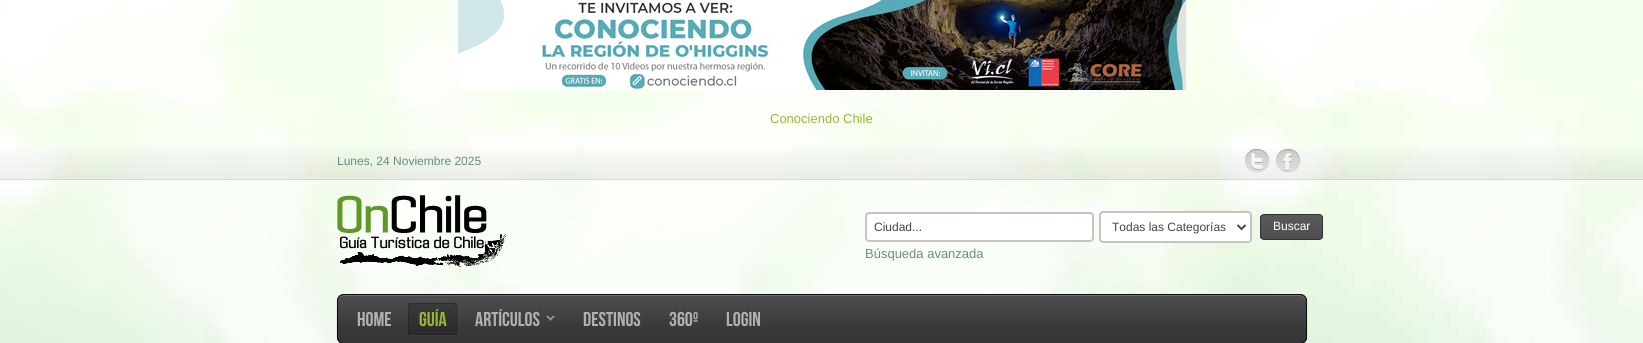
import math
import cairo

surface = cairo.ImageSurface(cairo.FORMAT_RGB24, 1643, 343)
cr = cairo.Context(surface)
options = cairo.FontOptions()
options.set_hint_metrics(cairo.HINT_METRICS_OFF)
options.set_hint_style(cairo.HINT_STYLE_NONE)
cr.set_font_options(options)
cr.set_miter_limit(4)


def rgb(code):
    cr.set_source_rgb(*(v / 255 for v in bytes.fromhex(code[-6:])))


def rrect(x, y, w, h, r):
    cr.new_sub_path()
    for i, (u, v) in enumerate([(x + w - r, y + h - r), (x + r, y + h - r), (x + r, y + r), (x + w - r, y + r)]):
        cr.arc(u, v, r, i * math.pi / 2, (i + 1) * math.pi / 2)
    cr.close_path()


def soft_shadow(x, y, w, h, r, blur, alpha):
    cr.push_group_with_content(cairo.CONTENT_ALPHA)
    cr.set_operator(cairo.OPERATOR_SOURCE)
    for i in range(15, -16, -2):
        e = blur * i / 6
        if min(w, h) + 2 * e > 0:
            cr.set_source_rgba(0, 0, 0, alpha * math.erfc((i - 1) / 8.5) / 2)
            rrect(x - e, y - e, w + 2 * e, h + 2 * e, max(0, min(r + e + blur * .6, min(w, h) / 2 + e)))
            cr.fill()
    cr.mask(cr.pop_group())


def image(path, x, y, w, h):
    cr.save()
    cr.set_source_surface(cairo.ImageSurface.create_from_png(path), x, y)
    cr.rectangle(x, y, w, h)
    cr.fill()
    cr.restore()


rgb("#ffffff")
cr.paint()
image("img/1.png", 0, 0, 1643, 343)
image("img/2.png", 458, 0, 728, 90)
cr.set_source_rgba(0.992, 0.992, 1, 0.5)
cr.rectangle(40, 180, 1603, 1)
cr.fill()
image("img/3.png", 0, 149, 1643, 31)
rgb("#fdfdff")
cr.rectangle(0, 143, 1643, 1)
cr.fill()
cr.set_source_rgba(0, 0, 0.008, 0.1)
cr.rectangle(0, 179, 1643, 1)
cr.fill()
image("img/4.png", 1245, 149, 25, 25)
image("img/5.png", 1276, 149, 25, 25)
image("img/6.png", 337, 195, 169, 72)
rgb("#ffffff")
rrect(866, 213, 227, 28, 3)
cr.fill_preserve()
rgb("#c4c4c5")
cr.stroke()
rgb("#ffffff")
rrect(1100, 212, 151, 30, 3)
cr.fill_preserve()
rgb("#c4c4c5")
cr.stroke()
cr.new_path()
cr.move_to(1237.5, 225)
cr.line_to(1241.5, 229)
cr.line_to(1245.5, 225)
rgb("#444446")
cr.stroke()
cr.save()
rrect(1260, 214, 63, 26, 4)
cr.clip()
gradient = cairo.LinearGradient(1261, 215, 1261, 239)
gradient.add_color_stop_rgba(0, 0.353, 0.353, 0.361, 1)
gradient.add_color_stop_rgba(1, 0.306, 0.306, 0.314, 1)
cr.set_source(gradient)
cr.rectangle(1260, 215, 63, 24)
cr.fill()
cr.restore()
rrect(1260.5, 214.5, 62, 25, 3.5)
rgb("#333333")
cr.set_line_width(1)
cr.stroke()
rgb("#000002")
soft_shadow(337, 295, 970, 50, 7, 0.5, 0.2)
rgb("#363638")
rrect(337, 294, 970, 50, 7)
cr.fill()
image("img/7.png", 337, 295, 970, 45)
rgb("#707072")
cr.new_path()
cr.move_to(344, 296)
cr.line_to(1300, 296)
cr.curve_to(1303, 296, 1306, 299, 1306, 302)
cr.line_to(1306, 301)
cr.curve_to(1306, 298, 1303, 295, 1300, 295)
cr.line_to(344, 295)
cr.curve_to(341, 295, 338, 298, 338, 301)
cr.line_to(338, 302)
cr.curve_to(338, 299, 341, 296, 344, 296)
cr.close_path()
cr.fill()
rrect(337.5, 294.5, 969, 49, 6.5)
cr.set_source_rgba(0, 0, 0.008, 0.8)
cr.stroke()
cr.set_source_rgba(0.992, 0.992, 1, 0.05)
cr.new_path()
cr.move_to(410, 334)
cr.curve_to(410, 335, 412, 336, 413, 336)
cr.line_to(455, 336)
cr.curve_to(457, 336, 459, 334, 459, 332)
cr.line_to(459, 308)
cr.curve_to(459, 307, 458, 305, 457, 305)
cr.line_to(458, 307)
cr.line_to(458, 331)
cr.curve_to(458, 333, 456, 335, 454, 335)
cr.line_to(412, 335)
cr.close_path()
cr.fill()
cr.set_source_rgba(0, 0, 0, 0.2)
cr.rectangle(408, 303, 50, 32)
cr.fill()
cr.new_path()
cr.move_to(456.5, 304.5)
cr.curve_to(458.5, 307, 457.5, 316, 457.5, 319)
cr.curve_to(457.5, 333.5, 461, 334.5, 447, 334.5)
cr.line_to(419, 334.5)
cr.curve_to(417.5, 334.5, 411.5, 335.5, 409.5, 333.5)
cr.set_source_rgba(0, 0, 0.008, 0.12)
cr.stroke()
cr.new_path()
cr.move_to(409.5, 333.5)
cr.curve_to(407.5, 331, 408.5, 322, 408.5, 319)
cr.curve_to(408.5, 304.5, 405, 303.5, 419, 303.5)
cr.line_to(447, 303.5)
cr.curve_to(448.5, 303.5, 454.5, 302.5, 456.5, 304.5)
cr.set_source_rgba(0, 0, 0.008, 0.25)
cr.stroke()
image("img/8.png", 546, 316, 9, 6)
cr.select_font_face("Liberation Sans")
cr.set_font_size(13)
rgb("#97b931")
cr.move_to(770, 123)
cr.show_text("Conociendo Chile")
cr.set_font_size(12)
rgb("#658e82")
cr.move_to(337, 165)
cr.show_text("Lunes, 24 Noviembre 2025")
rgb("#444446")
cr.move_to(874, 231)
cr.show_text("Ciudad...")
cr.move_to(1112, 231)
cr.show_text("Todas las Categorías")
rgb("#ffffff")
cr.move_to(1273, 230)
cr.show_text("Buscar")
cr.set_font_size(13)
rgb("#658e82")
cr.move_to(865, 258)
cr.show_text("Búsqueda avanzada")
cr.select_font_face("Bebas Neue")
cr.set_font_size(20)
rgb("#b1b1b3")
cr.move_to(357, 326)
cr.show_text("HOME")
rgb("#97b931")
cr.move_to(419, 326)
cr.show_text("GUÍA")
rgb("#b1b1b3")
for x, y, s in [
    (475, 326, "ARTÍCULOS"),
    (583, 326, "DESTINOS"),
    (669, 326, "360º"),
    (726, 326, "LOGIN"),
]:
    cr.move_to(x, y)
    cr.show_text(s)
surface.write_to_png("page.png")
